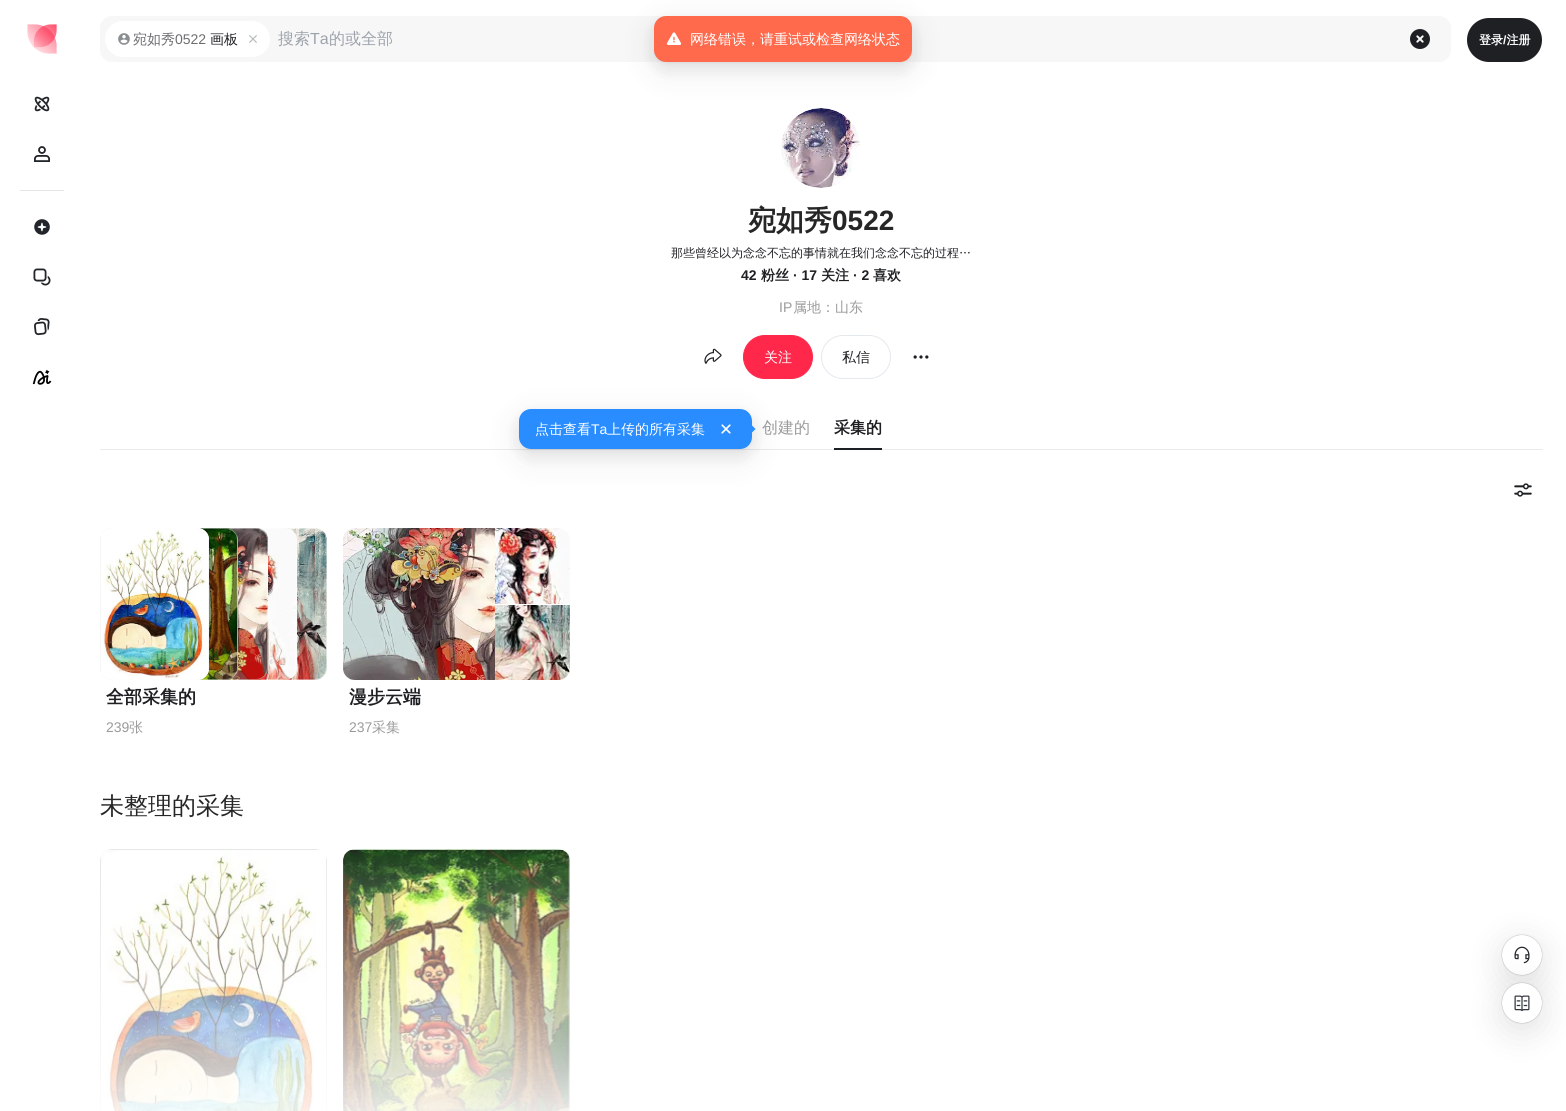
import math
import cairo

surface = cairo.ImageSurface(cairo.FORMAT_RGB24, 1566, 1111)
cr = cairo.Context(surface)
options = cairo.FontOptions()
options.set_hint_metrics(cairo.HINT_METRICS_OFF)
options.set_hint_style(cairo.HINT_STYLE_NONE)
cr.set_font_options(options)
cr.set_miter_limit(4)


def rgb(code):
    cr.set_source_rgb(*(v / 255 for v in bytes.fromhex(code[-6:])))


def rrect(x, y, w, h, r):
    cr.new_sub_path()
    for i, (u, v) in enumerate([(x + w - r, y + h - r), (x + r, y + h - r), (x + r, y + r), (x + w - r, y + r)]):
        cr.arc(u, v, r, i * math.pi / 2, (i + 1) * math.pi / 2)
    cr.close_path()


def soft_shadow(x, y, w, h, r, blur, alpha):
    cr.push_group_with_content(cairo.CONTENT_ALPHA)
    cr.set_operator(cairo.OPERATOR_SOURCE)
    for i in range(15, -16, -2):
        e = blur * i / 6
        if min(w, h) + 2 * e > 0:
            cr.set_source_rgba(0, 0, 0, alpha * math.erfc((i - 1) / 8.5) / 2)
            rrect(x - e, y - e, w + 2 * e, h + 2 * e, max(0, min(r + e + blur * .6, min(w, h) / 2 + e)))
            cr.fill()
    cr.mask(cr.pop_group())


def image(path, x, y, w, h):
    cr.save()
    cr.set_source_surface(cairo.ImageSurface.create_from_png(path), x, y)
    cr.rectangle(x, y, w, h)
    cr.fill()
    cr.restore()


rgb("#ffffff")
cr.paint()
image("img/1.png", 27, 24, 30, 30)
image("img/2.png", 34, 96, 16, 16)
image("img/3.png", 34, 146, 16, 16)
rgb("#e6e6e6")
cr.rectangle(20, 190, 44, 1)
cr.fill()
image("img/4.png", 34, 219, 16, 16)
image("img/5.png", 33, 268, 18, 18)
image("img/6.png", 34, 318, 16, 18)
image("img/7.png", 32, 369, 20, 16)
rgb("#f7f7f7")
rrect(100, 16, 1351, 46, 12)
cr.fill()
rgb("#ffffff")
rrect(105, 21, 165, 36, 18)
cr.fill()
image("img/8.png", 118, 33, 12, 12)
image("img/9.png", 249, 35, 8, 8)
image("img/10.png", 1410, 29, 20, 20)
rgb("#1e2023")
rrect(1467, 18, 75, 44, 22)
cr.fill()
image("img/11.png", 781, 108, 80, 80)
image("img/12.png", 704, 348, 18, 16)
rgb("#ff284b")
rrect(743.5, 335.5, 69, 43, 21.5)
cr.fill_preserve()
cr.set_line_width(1)
cr.stroke()
rrect(821.5, 335.5, 69, 43, 21.5)
rgb("#e4e9ed")
cr.stroke()
image("img/13.png", 913, 355, 16, 4)
rgb("#ebebeb")
cr.rectangle(100, 449, 1443, 1)
cr.fill()
rgb("#000000")
soft_shadow(511, 410, 249, 56, 20, 14, 0.05)
soft_shadow(519, 415, 233, 40, 12, 8, 0.08)
soft_shadow(523, 416, 225, 32, 8, 3, 0.12)
rgb("#298dff")
rrect(519, 409, 233, 40, 12)
cr.fill()
image("img/14.png", 721, 424, 10, 10)
cr.save()
cr.rectangle(752, 422, 13, 13)
cr.clip()
cr.new_path()
cr.move_to(752, 425.5)
cr.line_to(755.5, 429)
cr.line_to(752, 432.5)
cr.line_to(748.5, 429)
cr.close_path()
cr.fill()
cr.restore()
rgb("#1c1f23")
cr.rectangle(834, 448, 48, 2)
cr.fill()
image("img/15.png", 1514, 483, 18, 14)
rgb("#f2f2f2")
rrect(218, 528, 109, 152, 12)
cr.fill()
image("img/20.png", 285, 528, 42, 152)
rrect(218.5, 528.5, 108, 151, 11.5)
cr.set_source_rgba(1, 1, 1, 0.4)
cr.stroke()
image("img/19.png", 256, 528, 41, 152)
rrect(189.5, 528.5, 107, 151, 11.5)
cr.stroke()
image("img/18.png", 226, 528, 42, 152)
rrect(159.5, 528.5, 108, 151, 11.5)
cr.stroke()
image("img/17.png", 197, 528, 41, 152)
rrect(130.5, 528.5, 107, 151, 11.5)
cr.stroke()
rgb("#ffffff")
rrect(100, 528, 109, 152, 12)
cr.fill()
cr.set_source_rgba(0.933, 0.933, 0.933, 0.5)
rrect(100, 528, 109, 152, 12)
cr.fill()
rrect(100, 528, 109, 152, 12)
cr.fill()
image("img/16.png", 101, 528, 108, 152)
rrect(100.5, 528.5, 108, 151, 11.5)
cr.set_source_rgba(1, 1, 1, 0.4)
cr.stroke()
image("img/21.png", 343, 528, 152, 152)
image("img/22.png", 495, 528, 75, 76)
image("img/23.png", 495, 605, 75, 75)
image("img/24.png", 100, 849, 227, 262)
image("img/25.png", 343, 849, 227, 262)
gradient = cairo.LinearGradient(821, 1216, 821, 816)
gradient.add_color_stop_rgba(0.17, 1, 1, 1, 1)
gradient.add_color_stop_rgba(1, 1, 1, 1, 0)
cr.set_source(gradient)
cr.rectangle(100, 849, 470, 262)
cr.fill()
rgb("#000000")
soft_shadow(1500, 941, 44, 44, 22, 16, 0.1)
soft_shadow(1502, 935, 40, 40, 20, 0.5, 0.35)
rgb("#ffffff")
cr.arc(1522, 955, 20, 0, 2 * math.pi)
cr.fill()
rgb("#000000")
soft_shadow(1500, 989, 44, 44, 22, 16, 0.1)
image("img/26.png", 1514, 946, 16, 18)
soft_shadow(1502, 983, 40, 40, 20, 0.5, 0.35)
rgb("#ffffff")
cr.arc(1522, 1003, 20, 0, 2 * math.pi)
cr.fill()
image("img/27.png", 1514, 995, 16, 16)
rgb("#000000")
soft_shadow(646, 17, 274, 62, 20, 14, 0.05)
soft_shadow(654, 22, 258, 46, 12, 8, 0.08)
soft_shadow(658, 23, 250, 38, 8, 3, 0.12)
rgb("#ff6a4d")
rrect(654, 16, 258, 46, 12)
cr.fill()
image("img/28.png", 666, 32, 16, 13)
cr.select_font_face("WenQuanYi Zen Hei Medium")
cr.set_font_size(14)
rgb("#6d6e70")
cr.move_to(133, 44)
cr.show_text("宛如秀")
cr.select_font_face("Liberation Sans")
cr.move_to(175, 44)
cr.show_text("0522")
cr.select_font_face("WenQuanYi Zen Hei Medium")
rgb("#1e2023")
cr.move_to(210, 44)
cr.show_text("画板")
cr.set_font_size(16)
rgb("#9da3ac")
cr.move_to(278, 44)
cr.show_text("搜索")
cr.select_font_face("Liberation Sans")
cr.move_to(310, 44)
cr.show_text("Ta")
cr.select_font_face("WenQuanYi Zen Hei Medium")
cr.move_to(329, 44)
cr.show_text("的或全部")
cr.select_font_face("WenQuanYi Zen Hei", cairo.FONT_SLANT_NORMAL, cairo.FONT_WEIGHT_BOLD)
cr.set_font_size(12)
rgb("#ffffff")
cr.move_to(1479, 44)
cr.show_text("登录 注册")
cr.select_font_face("Liberation Sans", cairo.FONT_SLANT_NORMAL, cairo.FONT_WEIGHT_BOLD)
cr.move_to(1503, 44)
cr.show_text("/")
cr.select_font_face("WenQuanYi Zen Hei", cairo.FONT_SLANT_NORMAL, cairo.FONT_WEIGHT_BOLD)
cr.set_font_size(28)
rgb("#262626")
cr.move_to(748, 230)
cr.show_text("宛如秀")
cr.select_font_face("Liberation Sans", cairo.FONT_SLANT_NORMAL, cairo.FONT_WEIGHT_BOLD)
cr.move_to(832, 230)
cr.show_text("0522")
cr.select_font_face("WenQuanYi Zen Hei Medium")
cr.set_font_size(12)
rgb("#1e2023")
cr.move_to(671, 257)
cr.show_text("那些曾经以为念念不忘的事情就在我们念念不忘的过程…")
cr.select_font_face("Liberation Sans", cairo.FONT_SLANT_NORMAL, cairo.FONT_WEIGHT_BOLD)
cr.set_font_size(14)
cr.move_to(741, 280)
cr.show_text("42")
cr.select_font_face("WenQuanYi Zen Hei", cairo.FONT_SLANT_NORMAL, cairo.FONT_WEIGHT_BOLD)
cr.move_to(761, 280)
cr.show_text("粉丝")
cr.select_font_face("Liberation Sans", cairo.FONT_SLANT_NORMAL, cairo.FONT_WEIGHT_BOLD)
cr.move_to(793, 280)
cr.show_text("· 17")
cr.select_font_face("WenQuanYi Zen Hei", cairo.FONT_SLANT_NORMAL, cairo.FONT_WEIGHT_BOLD)
cr.move_to(821, 280)
cr.show_text("关注")
cr.select_font_face("Liberation Sans", cairo.FONT_SLANT_NORMAL, cairo.FONT_WEIGHT_BOLD)
cr.move_to(853, 280)
cr.show_text("· 2")
cr.select_font_face("WenQuanYi Zen Hei", cairo.FONT_SLANT_NORMAL, cairo.FONT_WEIGHT_BOLD)
cr.move_to(873, 280)
cr.show_text("喜欢")
cr.select_font_face("Liberation Sans")
rgb("#9a9b9c")
cr.move_to(779, 312)
cr.show_text("IP")
cr.select_font_face("WenQuanYi Zen Hei Medium")
cr.move_to(793, 312)
cr.show_text("属地：山东")
rgb("#ffffff")
cr.move_to(764, 362)
cr.show_text("关注")
rgb("#1e2023")
cr.move_to(842, 362)
cr.show_text("私信")
rgb("#ffffff")
cr.move_to(535, 434)
cr.show_text("点击查看")
cr.select_font_face("Liberation Sans")
cr.move_to(591, 434)
cr.show_text("Ta")
cr.select_font_face("WenQuanYi Zen Hei Medium")
cr.move_to(607, 434)
cr.show_text("上传的所有采集")
cr.set_font_size(16)
rgb("#9a9b9c")
cr.move_to(762, 433)
cr.show_text("创建的")
cr.select_font_face("WenQuanYi Zen Hei", cairo.FONT_SLANT_NORMAL, cairo.FONT_WEIGHT_BOLD)
rgb("#1e2023")
cr.move_to(834, 433)
cr.show_text("采集的")
cr.set_font_size(18)
cr.move_to(106, 703)
cr.show_text("全部采集的")
cr.select_font_face("Liberation Sans")
cr.set_font_size(14)
rgb("#9a9b9c")
cr.move_to(106, 732)
cr.show_text("239")
cr.select_font_face("WenQuanYi Zen Hei Medium")
cr.move_to(129, 732)
cr.show_text("张")
cr.select_font_face("WenQuanYi Zen Hei", cairo.FONT_SLANT_NORMAL, cairo.FONT_WEIGHT_BOLD)
cr.set_font_size(18)
rgb("#1e2023")
cr.move_to(349, 703)
cr.show_text("漫步云端")
cr.select_font_face("Liberation Sans")
cr.set_font_size(14)
rgb("#9a9b9c")
cr.move_to(349, 732)
cr.show_text("237")
cr.select_font_face("WenQuanYi Zen Hei Medium")
cr.move_to(372, 732)
cr.show_text("采集")
cr.set_font_size(24)
rgb("#262626")
cr.move_to(100, 814)
cr.show_text("未整理的采集")
cr.set_font_size(14)
rgb("#ffffff")
cr.move_to(690, 44)
cr.show_text("网络错误，请重试或检查网络状态")
surface.write_to_png("page.png")
